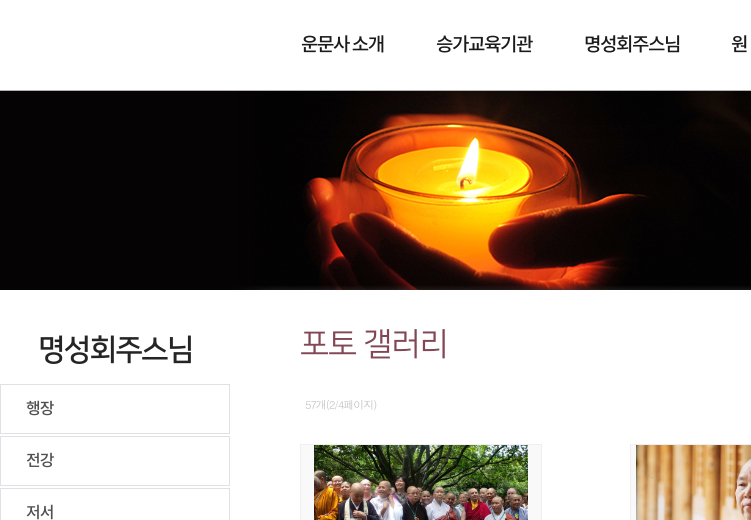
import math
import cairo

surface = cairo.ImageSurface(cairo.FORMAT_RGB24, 751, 520)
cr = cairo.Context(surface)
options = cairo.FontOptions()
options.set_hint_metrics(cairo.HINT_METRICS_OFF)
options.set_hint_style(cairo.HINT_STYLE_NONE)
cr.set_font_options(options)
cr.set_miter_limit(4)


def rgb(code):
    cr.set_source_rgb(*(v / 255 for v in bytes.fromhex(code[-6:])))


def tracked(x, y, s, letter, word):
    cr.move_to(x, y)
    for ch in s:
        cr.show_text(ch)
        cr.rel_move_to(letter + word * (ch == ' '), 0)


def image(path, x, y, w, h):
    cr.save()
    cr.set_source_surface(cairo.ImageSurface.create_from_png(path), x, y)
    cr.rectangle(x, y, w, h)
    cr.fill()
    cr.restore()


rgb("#ffffff")
cr.paint()
rgb("#b3b3b3")
cr.rectangle(0, 90, 751, 1)
cr.fill()
image("img/1.png", 0, 91, 751, 199)
cr.rectangle(0.5, 384.5, 229, 49)
rgb("#e1e1e5")
cr.set_line_width(1)
cr.stroke()
cr.rectangle(0.5, 436.5, 229, 49)
cr.stroke()
cr.rectangle(0.5, 488.5, 229, 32)
cr.stroke()
rgb("#f9f9f9")
cr.rectangle(300.5, 444.5, 241, 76)
cr.fill_preserve()
rgb("#efefef")
cr.stroke()
image("img/2.png", 314, 445, 214, 75)
rgb("#f9f9f9")
cr.rectangle(631, 445, 5, 75)
cr.fill()
cr.rectangle(630.5, 444.5, 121, 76)
rgb("#efefef")
cr.stroke()
image("img/3.png", 636, 445, 115, 75)
cr.select_font_face("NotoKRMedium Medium")
cr.set_font_size(19)
rgb("#1b1b1b")
for x, y, s in [
    (301, 51, "운문사 소개"),
    (436, 51, "승가교육기관"),
    (584, 51, "명성회주스님"),
    (731, 51, "원"),
]:
    tracked(x, y, s, -1.5, 0)
cr.select_font_face("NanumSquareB", cairo.FONT_SLANT_NORMAL, cairo.FONT_WEIGHT_BOLD)
cr.set_font_size(30)
rgb("#252525")
tracked(38, 359, "명성회주스님", -1.5, 0)
cr.select_font_face("NotoKRMedium Medium")
cr.set_font_size(16)
rgb("#514f4f")
for x, y, s in [
    (26, 414, "행장"),
    (26, 466, "전강"),
    (26, 518, "저서"),
]:
    tracked(x, y, s, -1, 0)
cr.select_font_face("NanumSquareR")
cr.set_font_size(32)
rgb("#834655")
tracked(300, 354, "포토 갤러리", -1, 0)
cr.select_font_face("Dotum")
cr.set_font_size(11)
rgb("#c0c0c0")
tracked(305, 409, "57개(2/4페이지)", -1, 0)
surface.write_to_png("page.png")
